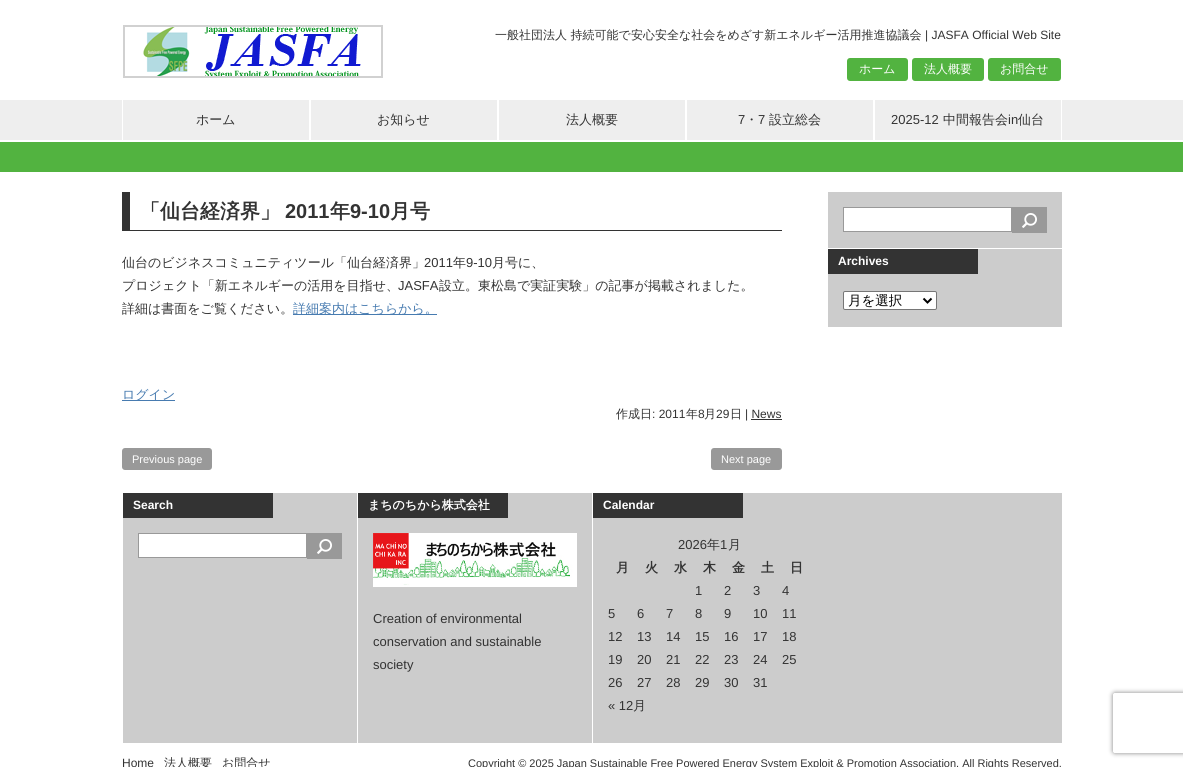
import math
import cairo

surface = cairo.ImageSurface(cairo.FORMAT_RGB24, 1183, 767)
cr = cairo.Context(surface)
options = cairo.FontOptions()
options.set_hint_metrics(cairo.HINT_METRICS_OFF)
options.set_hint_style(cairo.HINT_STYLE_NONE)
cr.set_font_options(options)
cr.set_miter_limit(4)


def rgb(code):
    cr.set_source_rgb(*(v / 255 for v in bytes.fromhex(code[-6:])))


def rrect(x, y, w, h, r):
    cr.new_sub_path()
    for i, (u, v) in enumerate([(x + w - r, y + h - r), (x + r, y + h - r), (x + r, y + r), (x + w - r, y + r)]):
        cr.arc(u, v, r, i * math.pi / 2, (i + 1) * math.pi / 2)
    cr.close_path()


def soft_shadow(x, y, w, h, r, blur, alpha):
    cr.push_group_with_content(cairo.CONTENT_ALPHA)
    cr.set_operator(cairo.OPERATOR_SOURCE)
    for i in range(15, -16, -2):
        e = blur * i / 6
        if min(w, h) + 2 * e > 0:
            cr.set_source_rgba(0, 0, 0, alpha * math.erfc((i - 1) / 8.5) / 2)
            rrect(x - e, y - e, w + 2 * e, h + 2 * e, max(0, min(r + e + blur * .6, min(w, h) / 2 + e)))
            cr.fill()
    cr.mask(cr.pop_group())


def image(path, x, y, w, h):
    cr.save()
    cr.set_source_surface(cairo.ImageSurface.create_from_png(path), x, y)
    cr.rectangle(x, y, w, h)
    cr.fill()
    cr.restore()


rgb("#ffffff")
cr.paint()
image("img/1.png", 123, 25, 260, 53)
rgb("#52b340")
rrect(847, 58, 61, 23, 3)
cr.fill()
rrect(912, 58, 72, 23, 3)
cr.fill()
rrect(988, 58, 73, 23, 3)
cr.fill()
for x, y, w, h, color in [
    (0, 100, 1183, 40, "#eeeeee"),
    (122, 100, 940, 40, "#ffffff"),
    (123, 100, 186, 40, "#eeeeee"),
    (311, 100, 186, 40, "#eeeeee"),
    (499, 100, 186, 40, "#eeeeee"),
    (687, 100, 186, 40, "#eeeeee"),
    (875, 100, 186, 40, "#eeeeee"),
    (0, 142, 1183, 30, "#52b340"),
    (122, 230, 660, 1, "#333333"),
    (122, 192, 8, 39, "#333333"),
    (293, 314, 144, 1, "#477bb0"),
    (751, 419, 31, 1, "#333333"),
    (122, 400, 53, 1, "#477bb0"),
]:
    rgb(color)
    cr.rectangle(x, y, w, h)
    cr.fill()
rgb("#999999")
rrect(122, 448, 90, 22, 3)
cr.fill()
rrect(711, 448, 71, 22, 3)
cr.fill()
rgb("#cccccc")
cr.rectangle(828, 192, 234, 56)
cr.fill()
rgb("#ffffff")
cr.rectangle(843.5, 207.5, 168, 24)
cr.fill_preserve()
rgb("#999999")
cr.set_line_width(1)
cr.stroke()
cr.rectangle(1012, 207, 35, 26)
cr.fill()
image("img/2.png", 1022, 213, 15, 15)
rgb("#cccccc")
cr.rectangle(828, 249, 234, 78)
cr.fill()
rgb("#333333")
cr.rectangle(828, 249, 150, 25)
cr.fill()
rgb("#ffffff")
rrect(843.5, 291.5, 93, 18, 1.5)
cr.fill_preserve()
rgb("#767676")
cr.stroke()
cr.new_path()
cr.move_to(923.5, 298.5)
cr.line_to(927.5, 302.5)
cr.line_to(931.5, 298.5)
rgb("#000000")
cr.set_line_width(2)
cr.stroke()
rgb("#cccccc")
cr.rectangle(123, 493, 939, 250)
cr.fill()
rgb("#333333")
cr.rectangle(123, 493, 150, 25)
cr.fill()
rgb("#ffffff")
cr.rectangle(138.5, 533.5, 168, 24)
cr.fill_preserve()
rgb("#999999")
cr.set_line_width(1)
cr.stroke()
cr.rectangle(307, 533, 35, 26)
cr.fill()
image("img/2.png", 317, 539, 15, 15)
rgb("#ffffff")
cr.rectangle(357, 493, 1, 250)
cr.fill()
rgb("#333333")
cr.rectangle(358, 493, 150, 25)
cr.fill()
image("img/3.png", 373, 533, 204, 54)
rgb("#ffffff")
cr.rectangle(592, 493, 1, 250)
cr.fill()
rgb("#333333")
cr.rectangle(593, 493, 150, 25)
cr.fill()
cr.save()
cr.set_fill_rule(cairo.FILL_RULE_EVEN_ODD)
cr.new_path()
cr.move_to(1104, 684)
cr.line_to(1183, 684)
cr.line_to(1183, 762)
cr.line_to(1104, 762)
cr.close_path()
cr.move_to(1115, 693)
cr.line_to(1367, 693)
cr.curve_to(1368, 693, 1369, 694, 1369, 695)
cr.line_to(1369, 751)
cr.curve_to(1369, 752, 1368, 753, 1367, 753)
cr.line_to(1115, 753)
cr.curve_to(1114, 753, 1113, 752, 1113, 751)
cr.line_to(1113, 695)
cr.curve_to(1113, 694, 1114, 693, 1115, 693)
cr.close_path()
cr.clip()
rgb("#808080")
soft_shadow(1113, 693, 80, 60, 2, 2.5, 1)
cr.restore()
cr.select_font_face("WenQuanYi Zen Hei Medium")
cr.set_font_size(12)
cr.move_to(495, 39)
cr.show_text("一般社団法人 持続可能で安心安全な社会をめざす新エネルギー活用推進協議会")
cr.select_font_face("Liberation Sans")
cr.move_to(925, 39)
cr.show_text("| JASFA Official Web Site")
cr.select_font_face("WenQuanYi Zen Hei Medium")
rgb("#ffffff")
for x, y, s in [
    (859, 73, "ホーム"),
    (924, 73, "法人概要"),
    (1000, 73, "お問合せ"),
]:
    cr.move_to(x, y)
    cr.show_text(s)
cr.set_font_size(13)
rgb("#333333")
for x, y, s in [
    (196, 124, "ホーム"),
    (377, 124, "お知らせ"),
    (566, 124, "法人概要"),
]:
    cr.move_to(x, y)
    cr.show_text(s)
cr.select_font_face("Liberation Sans")
cr.move_to(738, 124)
cr.show_text("7")
cr.select_font_face("WenQuanYi Zen Hei Medium")
cr.move_to(745, 124)
cr.show_text("・")
cr.select_font_face("Liberation Sans")
cr.move_to(758, 124)
cr.show_text("7")
cr.select_font_face("WenQuanYi Zen Hei Medium")
cr.move_to(769, 124)
cr.show_text("設立総会")
cr.select_font_face("Liberation Sans")
cr.move_to(891, 124)
cr.show_text("2025-12")
cr.select_font_face("WenQuanYi Zen Hei Medium")
cr.move_to(943, 124)
cr.show_text("中間報告会")
cr.select_font_face("Liberation Sans")
cr.move_to(1008, 124)
cr.show_text("in")
cr.select_font_face("WenQuanYi Zen Hei Medium")
cr.move_to(1018, 124)
cr.show_text("仙台")
cr.select_font_face("WenQuanYi Zen Hei", cairo.FONT_SLANT_NORMAL, cairo.FONT_WEIGHT_BOLD)
cr.set_font_size(20)
cr.move_to(140, 218)
cr.show_text("「仙台経済界」")
cr.select_font_face("Liberation Sans", cairo.FONT_SLANT_NORMAL, cairo.FONT_WEIGHT_BOLD)
cr.move_to(285, 218)
cr.show_text("2011")
cr.select_font_face("WenQuanYi Zen Hei", cairo.FONT_SLANT_NORMAL, cairo.FONT_WEIGHT_BOLD)
cr.move_to(330, 218)
cr.show_text("年")
cr.select_font_face("Liberation Sans", cairo.FONT_SLANT_NORMAL, cairo.FONT_WEIGHT_BOLD)
cr.move_to(350, 218)
cr.show_text("9-10")
cr.select_font_face("WenQuanYi Zen Hei", cairo.FONT_SLANT_NORMAL, cairo.FONT_WEIGHT_BOLD)
cr.move_to(390, 218)
cr.show_text("月号")
cr.select_font_face("WenQuanYi Zen Hei Medium")
cr.set_font_size(13)
cr.move_to(122, 267)
cr.show_text("仙台のビジネスコミュニティツール「仙台経済界」")
cr.select_font_face("Liberation Sans")
cr.move_to(424, 267)
cr.show_text("2011")
cr.select_font_face("WenQuanYi Zen Hei Medium")
cr.move_to(453, 267)
cr.show_text("年")
cr.select_font_face("Liberation Sans")
cr.move_to(466, 267)
cr.show_text("9-10")
cr.select_font_face("WenQuanYi Zen Hei Medium")
cr.move_to(492, 267)
cr.show_text("月号に、")
cr.move_to(122, 290)
cr.show_text("プロジェクト「新エネルギーの活用を目指せ、")
cr.select_font_face("Liberation Sans")
cr.move_to(398, 290)
cr.show_text("JASFA")
cr.select_font_face("WenQuanYi Zen Hei Medium")
cr.move_to(439, 290)
cr.show_text("設立。東松島で実証実験」の記事が掲載されました。")
cr.save()
cr.rectangle(122, 192, 660, 301)
cr.clip()
cr.move_to(122, 313)
cr.show_text("詳細は書面をご覧ください。")
cr.restore()
rgb("#477bb0")
cr.move_to(293, 313)
cr.show_text("詳細案内はこちらから。")
cr.set_font_size(12)
rgb("#333333")
cr.move_to(616, 418)
cr.show_text("作成日")
cr.select_font_face("Liberation Sans")
cr.move_to(652, 418)
cr.show_text(": 2011")
cr.select_font_face("WenQuanYi Zen Hei Medium")
cr.move_to(686, 418)
cr.show_text("年")
cr.select_font_face("Liberation Sans")
cr.move_to(698, 418)
cr.show_text("8")
cr.select_font_face("WenQuanYi Zen Hei Medium")
cr.move_to(704, 418)
cr.show_text("月")
cr.select_font_face("Liberation Sans")
cr.move_to(716, 418)
cr.show_text("29")
cr.select_font_face("WenQuanYi Zen Hei Medium")
cr.move_to(730, 418)
cr.show_text("日")
cr.select_font_face("Liberation Sans")
cr.move_to(745, 418)
cr.show_text("| News")
cr.select_font_face("WenQuanYi Zen Hei Medium")
cr.set_font_size(13)
rgb("#477bb0")
cr.move_to(122, 399)
cr.show_text("ログイン")
cr.select_font_face("Liberation Sans")
cr.set_font_size(11)
rgb("#ffffff")
cr.move_to(132, 463)
cr.show_text("Previous page")
cr.move_to(721, 463)
cr.show_text("Next page")
cr.select_font_face("Liberation Sans", cairo.FONT_SLANT_NORMAL, cairo.FONT_WEIGHT_BOLD)
cr.set_font_size(12)
cr.move_to(838, 265)
cr.show_text("Archives")
cr.select_font_face("WenQuanYi Zen Hei Medium")
cr.set_font_size(13.5)
rgb("#000000")
cr.move_to(848, 305)
cr.show_text("月を選択")
cr.select_font_face("Liberation Sans", cairo.FONT_SLANT_NORMAL, cairo.FONT_WEIGHT_BOLD)
cr.set_font_size(12)
rgb("#ffffff")
cr.move_to(133, 509)
cr.show_text("Search")
cr.select_font_face("WenQuanYi Zen Hei", cairo.FONT_SLANT_NORMAL, cairo.FONT_WEIGHT_BOLD)
cr.move_to(368, 509)
cr.show_text("まちのちから株式会社")
cr.select_font_face("Liberation Sans")
cr.set_font_size(13)
rgb("#333333")
for x, y, s in [
    (373, 623, "Creation of environmental"),
    (373, 646, "conservation and sustainable"),
    (373, 669, "society"),
]:
    cr.move_to(x, y)
    cr.show_text(s)
cr.select_font_face("Liberation Sans", cairo.FONT_SLANT_NORMAL, cairo.FONT_WEIGHT_BOLD)
cr.set_font_size(12)
rgb("#ffffff")
cr.move_to(603, 509)
cr.show_text("Calendar")
cr.select_font_face("Liberation Sans")
cr.set_font_size(13)
rgb("#333333")
cr.move_to(678, 549)
cr.show_text("2026")
cr.select_font_face("WenQuanYi Zen Hei Medium")
cr.move_to(707, 549)
cr.show_text("年")
cr.select_font_face("Liberation Sans")
cr.move_to(720, 549)
cr.show_text("1")
cr.select_font_face("WenQuanYi Zen Hei Medium")
cr.move_to(728, 549)
cr.show_text("月")
cr.select_font_face("WenQuanYi Zen Hei", cairo.FONT_SLANT_NORMAL, cairo.FONT_WEIGHT_BOLD)
for x, y, s in [
    (616, 572, "月"),
    (645, 572, "火"),
    (674, 572, "水"),
    (703, 572, "木"),
    (732, 572, "金"),
    (761, 572, "土"),
    (790, 572, "日"),
]:
    cr.move_to(x, y)
    cr.show_text(s)
cr.select_font_face("Liberation Sans")
for x, y, s in [
    (695, 595, "1"),
    (724, 595, "2"),
    (753, 595, "3"),
    (782, 595, "4"),
    (608, 618, "5"),
    (637, 618, "6"),
    (666, 618, "7"),
    (695, 618, "8"),
    (724, 618, "9"),
    (753, 618, "10"),
    (782, 618, "11"),
    (608, 641, "12"),
    (637, 641, "13"),
    (666, 641, "14"),
    (695, 641, "15"),
    (724, 641, "16"),
    (753, 641, "17"),
    (782, 641, "18"),
    (608, 664, "19"),
    (637, 664, "20"),
    (666, 664, "21"),
    (695, 664, "22"),
    (724, 664, "23"),
    (753, 664, "24"),
    (782, 664, "25"),
    (608, 687, "26"),
    (637, 687, "27"),
    (666, 687, "28"),
    (695, 687, "29"),
    (724, 687, "30"),
    (753, 687, "31"),
    (608, 710, "« 12"),
]:
    cr.move_to(x, y)
    cr.show_text(s)
cr.select_font_face("WenQuanYi Zen Hei Medium")
cr.move_to(633, 710)
cr.show_text("月")
cr.select_font_face("Liberation Sans")
cr.set_font_size(12)
cr.move_to(122, 767)
cr.show_text("Home")
cr.select_font_face("WenQuanYi Zen Hei Medium")
cr.move_to(164, 767)
cr.show_text("法人概要")
cr.move_to(222, 767)
cr.show_text("お問合せ")
cr.select_font_face("Liberation Sans")
cr.set_font_size(11)
cr.move_to(468, 767)
cr.show_text("Copyright © 2025 Japan Sustainable Free Powered Energy System Exploit & Promotion Association. All Rights Reserved.")
surface.write_to_png("page.png")
